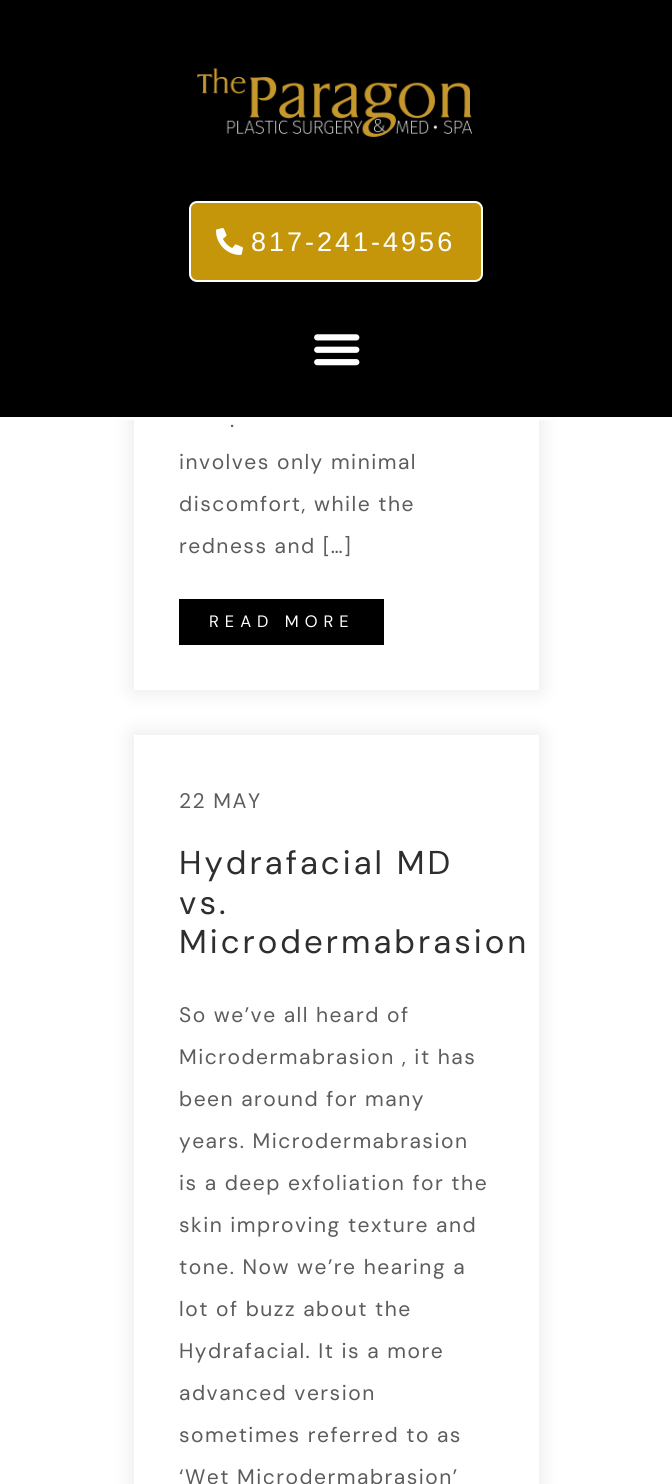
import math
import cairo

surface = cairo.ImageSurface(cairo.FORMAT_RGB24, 672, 1484)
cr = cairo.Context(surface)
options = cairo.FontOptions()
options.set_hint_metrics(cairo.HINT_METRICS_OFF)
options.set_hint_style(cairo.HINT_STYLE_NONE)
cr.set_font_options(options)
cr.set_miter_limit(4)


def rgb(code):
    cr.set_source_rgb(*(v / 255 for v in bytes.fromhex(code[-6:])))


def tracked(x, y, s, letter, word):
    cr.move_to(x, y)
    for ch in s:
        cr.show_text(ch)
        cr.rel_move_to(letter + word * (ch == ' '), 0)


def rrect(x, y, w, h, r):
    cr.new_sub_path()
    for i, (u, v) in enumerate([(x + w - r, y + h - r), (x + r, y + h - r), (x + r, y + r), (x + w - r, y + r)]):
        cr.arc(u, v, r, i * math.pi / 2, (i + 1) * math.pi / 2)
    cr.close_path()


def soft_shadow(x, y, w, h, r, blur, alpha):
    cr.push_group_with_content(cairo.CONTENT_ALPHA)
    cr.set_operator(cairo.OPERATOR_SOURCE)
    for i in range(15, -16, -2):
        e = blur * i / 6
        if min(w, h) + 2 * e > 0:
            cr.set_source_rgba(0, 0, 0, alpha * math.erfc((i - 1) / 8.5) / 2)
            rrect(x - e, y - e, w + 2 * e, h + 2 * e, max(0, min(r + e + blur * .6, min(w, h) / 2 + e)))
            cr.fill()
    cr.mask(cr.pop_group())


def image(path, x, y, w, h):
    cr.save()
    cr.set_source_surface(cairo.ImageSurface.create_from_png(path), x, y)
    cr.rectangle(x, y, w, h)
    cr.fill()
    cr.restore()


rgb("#ffffff")
cr.paint()
rgb("#000000")
soft_shadow(134, -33, 405, 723, 0, 11, 0.1)
rgb("#000000")
cr.rectangle(0, 0, 672, 417)
cr.fill()
rgb("#ffffff")
cr.rectangle(120, 417, 433, 3)
cr.fill()
image("img/1.png", 197, 68, 275, 69)
rgb("#c5960a")
rrect(190, 202, 292, 79, 7)
cr.fill_preserve()
rgb("#ffffff")
cr.stroke()
image("img/2.png", 216, 228, 27, 27)
image("img/3.png", 314, 334, 46, 32)
cr.rectangle(134, 420, 405, 270)
cr.fill()
rgb("#000000")
cr.rectangle(179, 599, 205, 46)
cr.fill()
rgb("#000000")
soft_shadow(134, 735, 405, 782, 0, 11, 0.1)
rgb("#ffffff")
cr.rectangle(134, 735, 405, 749)
cr.fill()
cr.select_font_face("Liberation Sans")
cr.set_font_size(27)
tracked(251, 251, "817-241-4956", 3, 0)
cr.select_font_face("DM Sans")
cr.set_font_size(21)
rgb("#5c5c5c")
for x, y, s in [
    (230, 427, "."),
    (179, 469, "involves only minimal"),
    (179, 511, "discomfort, while the"),
    (179, 553, "redness and […]"),
]:
    tracked(x, y, s, 1.5, 0)
cr.set_font_size(16.5)
rgb("#ffffff")
tracked(209, 627, "READ MORE", 6, 0)
cr.set_font_size(21)
rgb("#5c5c5c")
tracked(179, 808, "22 MAY", 1.5, 0)
cr.set_font_size(33)
rgb("#2e2e2e")
for x, y, s in [
    (179, 874, "Hydrafacial MD"),
    (179, 914, "vs."),
    (179, 953, "Microdermabrasion"),
]:
    tracked(x, y, s, 3, 0)
cr.set_font_size(21)
rgb("#5c5c5c")
for x, y, s in [
    (179, 1022, "So we’ve all heard of"),
    (179, 1064, "Microdermabrasion , it has"),
    (179, 1106, "been around for many"),
    (179, 1148, "years. Microdermabrasion"),
    (179, 1190, "is a deep exfoliation for the"),
    (179, 1232, "skin improving texture and"),
    (179, 1274, "tone. Now we’re hearing a"),
    (179, 1316, "lot of buzz about the"),
    (179, 1358, "Hydrafacial. It is a more"),
    (179, 1400, "advanced version"),
    (179, 1442, "sometimes referred to as"),
    (179, 1484, "‘Wet Microdermabrasion’"),
]:
    tracked(x, y, s, 1.5, 0)
surface.write_to_png("page.png")
